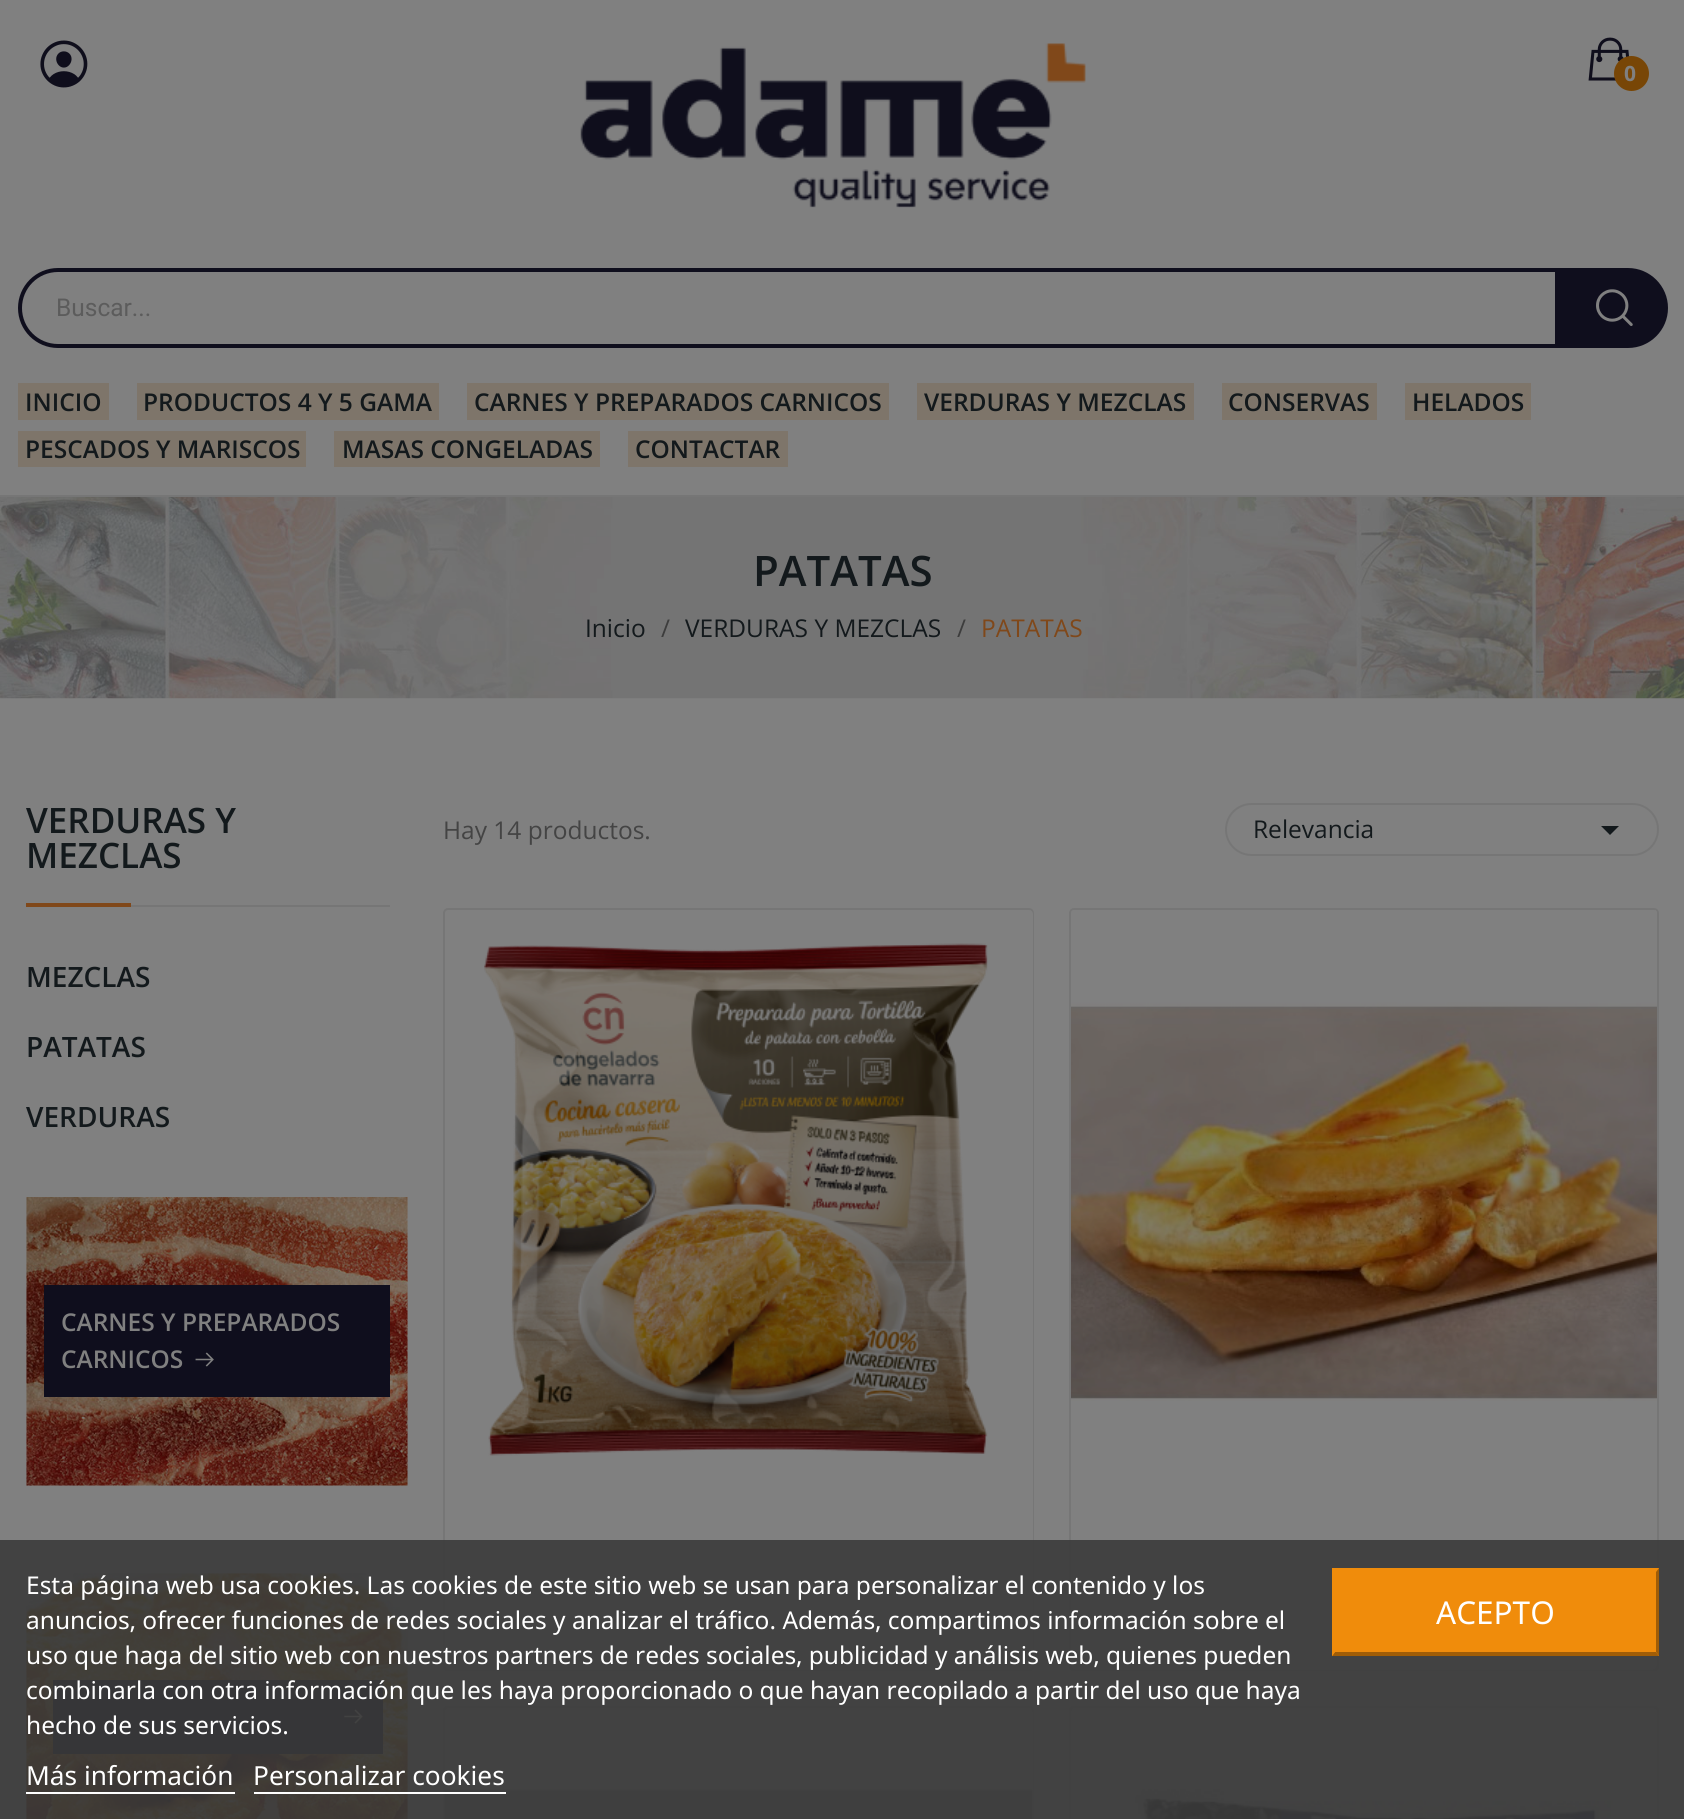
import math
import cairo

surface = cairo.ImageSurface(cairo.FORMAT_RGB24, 1684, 1819)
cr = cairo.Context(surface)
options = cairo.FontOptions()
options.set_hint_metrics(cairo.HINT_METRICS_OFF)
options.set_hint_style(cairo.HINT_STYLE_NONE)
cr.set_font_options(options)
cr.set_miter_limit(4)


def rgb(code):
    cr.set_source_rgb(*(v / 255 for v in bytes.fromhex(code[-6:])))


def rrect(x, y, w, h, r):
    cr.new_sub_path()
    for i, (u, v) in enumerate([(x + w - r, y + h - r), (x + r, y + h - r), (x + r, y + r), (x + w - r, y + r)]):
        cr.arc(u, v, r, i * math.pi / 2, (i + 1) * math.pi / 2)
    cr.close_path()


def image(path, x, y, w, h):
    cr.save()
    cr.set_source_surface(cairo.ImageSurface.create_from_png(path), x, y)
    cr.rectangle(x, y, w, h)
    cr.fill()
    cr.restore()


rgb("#808080")
cr.paint()
rgb("#767676")
cr.rectangle(0, 495, 1684, 2)
cr.fill()
image("img/1.png", 40, 40, 48, 48)
image("img/2.png", 580, 43, 506, 165)
image("img/3.png", 1588, 37, 42, 44)
rgb("#784606")
cr.arc(1631.5, 73.5, 17.5, 0, 2 * math.pi)
cr.fill()
cr.new_path()
cr.move_to(58, 270)
cr.line_to(1557, 270)
cr.line_to(1557, 346)
cr.line_to(58, 346)
cr.curve_to(37, 346, 20, 329, 20, 308)
cr.curve_to(20, 287, 37, 270, 58, 270)
cr.close_path()
rgb("#0f0e1d")
cr.set_line_width(4)
cr.stroke()
cr.new_path()
cr.move_to(1559, 268)
cr.line_to(1628, 268)
cr.curve_to(1650, 268, 1668, 286, 1668, 308)
cr.curve_to(1668, 330, 1650, 348, 1628, 348)
cr.line_to(1559, 348)
cr.close_path()
cr.fill()
image("img/4.png", 1596, 289, 37, 37)
for x, y, w, h, color in [
    (18, 383, 91, 37, "#7e756a"),
    (137, 383, 302, 37, "#7e756a"),
    (467, 383, 422, 37, "#7e756a"),
    (917, 383, 277, 37, "#7e756a"),
    (1222, 383, 155, 37, "#7e756a"),
    (1405, 383, 126, 37, "#7e756a"),
    (18, 431, 288, 36, "#7e756a"),
    (334, 431, 266, 36, "#7e756a"),
    (628, 431, 160, 36, "#7e756a"),
]:
    rgb(color)
    cr.rectangle(x, y, w, h)
    cr.fill()
image("img/5.png", 0, 497, 1684, 202)
rgb("#767676")
cr.rectangle(131, 905, 259, 2)
cr.fill()
rgb("#80481a")
cr.rectangle(26, 903, 105, 4)
cr.fill()
image("img/6.png", 26, 1197, 382, 289)
rgb("#0f0e1d")
cr.rectangle(44, 1285, 346, 112)
cr.fill()
image("img/7.png", 195, 1352, 19, 15)
image("img/8.png", 26, 1573, 382, 246)
cr.rectangle(53, 1680, 330, 74)
cr.fill()
image("img/9.png", 344, 1709, 19, 15)
rrect(1226, 804, 432, 51, 25.5)
rgb("#767676")
cr.set_line_width(2)
cr.stroke()
rgb("#13191c")
cr.new_path()
cr.move_to(1601, 826)
cr.line_to(1619, 826)
cr.line_to(1610, 835)
cr.close_path()
cr.fill()
rrect(444, 909, 589, 761, 4)
rgb("#767676")
cr.stroke()
rgb("#808080")
cr.new_path()
cr.move_to(449, 910)
cr.line_to(1029, 910)
cr.curve_to(1031, 910, 1033, 912, 1033, 914)
cr.line_to(1033, 1496)
cr.line_to(445, 1496)
cr.line_to(445, 914)
cr.curve_to(445, 912, 447, 910, 449, 910)
cr.close_path()
cr.fill()
image("img/10.png", 484, 943, 504, 513)
cr.new_path()
cr.move_to(445, 1496)
cr.line_to(1033, 1496)
cr.line_to(1033, 1666)
cr.curve_to(1033, 1668, 1031, 1670, 1029, 1670)
cr.line_to(449, 1670)
cr.curve_to(447, 1670, 445, 1668, 445, 1666)
cr.close_path()
cr.fill()
rrect(1070, 909, 588, 761, 4)
rgb("#767676")
cr.stroke()
image("img/11.png", 1071, 910, 586, 491)
rgb("#808080")
cr.new_path()
cr.move_to(1071, 1496)
cr.line_to(1657, 1496)
cr.line_to(1657, 1666)
cr.curve_to(1657, 1668, 1655, 1670, 1653, 1670)
cr.line_to(1075, 1670)
cr.curve_to(1073, 1670, 1071, 1668, 1071, 1666)
cr.close_path()
cr.fill()
rrect(444, 1707, 589, 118, 4)
rgb("#767676")
cr.stroke()
rgb("#808080")
cr.new_path()
cr.move_to(449, 1708)
cr.line_to(1029, 1708)
cr.curve_to(1031, 1708, 1033, 1710, 1033, 1712)
cr.line_to(1033, 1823)
cr.line_to(445, 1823)
cr.line_to(445, 1712)
cr.curve_to(445, 1710, 447, 1708, 449, 1708)
cr.close_path()
cr.fill()
image("img/12.png", 444, 1708, 589, 111)
rrect(1070, 1707, 588, 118, 4)
rgb("#767676")
cr.stroke()
image("img/13.png", 1071, 1708, 586, 111)
cr.set_source_rgba(0.231, 0.231, 0.231, 0.9)
cr.rectangle(0, 1540, 1684, 279)
cr.fill()
rgb("#ffffff")
cr.rectangle(26, 1792, 209, 2)
cr.rectangle(254, 1792, 252, 2)
cr.fill()
rgb("#f08c0b")
cr.rectangle(1332, 1568, 327, 88)
cr.fill()
rgb("#a05d07")
cr.new_path()
cr.move_to(1659, 1568)
cr.line_to(1659, 1656)
cr.line_to(1656, 1652)
cr.line_to(1656, 1572)
cr.close_path()
cr.fill()
cr.new_path()
cr.move_to(1659, 1656)
cr.line_to(1332, 1656)
cr.line_to(1335, 1652)
cr.line_to(1656, 1652)
cr.close_path()
cr.fill()
rgb("#f08c0b")
cr.new_path()
cr.move_to(1332, 1656)
cr.line_to(1332, 1568)
cr.line_to(1335, 1572)
cr.line_to(1335, 1652)
cr.close_path()
cr.fill()
cr.select_font_face("Open Sans", cairo.FONT_SLANT_NORMAL, cairo.FONT_WEIGHT_BOLD)
cr.set_font_size(21)
rgb("#808080")
cr.move_to(1624, 81)
cr.show_text("0")
cr.select_font_face("Roboto")
cr.set_font_size(24.5)
rgb("#5c5c5c")
cr.move_to(56, 316)
cr.show_text("Buscar...")
cr.select_font_face("Open Sans SemiBold")
rgb("#13191c")
for x, y, s in [
    (25, 411, "INICIO"),
    (143, 411, "PRODUCTOS 4 Y 5 GAMA"),
    (474, 411, "CARNES Y PREPARADOS CARNICOS"),
    (924, 411, "VERDURAS Y MEZCLAS"),
    (1228, 411, "CONSERVAS"),
    (1412, 411, "HELADOS"),
    (25, 458, "PESCADOS Y MARISCOS"),
    (342, 458, "MASAS CONGELADAS"),
    (635, 458, "CONTACTAR"),
]:
    cr.move_to(x, y)
    cr.show_text(s)
cr.set_font_size(42)
cr.move_to(753, 586)
cr.show_text("PATATAS")
cr.select_font_face("Open Sans")
cr.set_font_size(24.5)
cr.move_to(585, 637)
cr.show_text("Inicio")
rgb("#3d3d3d")
cr.move_to(661, 637)
cr.show_text("/")
rgb("#13191c")
cr.move_to(685, 637)
cr.show_text("VERDURAS Y MEZCLAS")
rgb("#3d3d3d")
cr.move_to(957, 637)
cr.show_text("/")
rgb("#80481a")
cr.move_to(981, 637)
cr.show_text("PATATAS")
cr.select_font_face("Open Sans SemiBold")
cr.set_font_size(35)
rgb("#13191c")
cr.move_to(26, 833)
cr.show_text("VERDURAS Y")
cr.move_to(26, 868)
cr.show_text("MEZCLAS")
cr.set_font_size(28)
for x, y, s in [
    (26, 987, "MEZCLAS"),
    (26, 1057, "PATATAS"),
    (26, 1127, "VERDURAS"),
]:
    cr.move_to(x, y)
    cr.show_text(s)
cr.set_font_size(24.5)
rgb("#808080")
cr.move_to(61, 1331)
cr.show_text("CARNES Y PREPARADOS")
cr.move_to(61, 1368)
cr.show_text("CARNICOS")
cr.select_font_face("Open Sans")
rgb("#444444")
cr.move_to(443, 839)
cr.show_text("Hay 14 productos.")
rgb("#13191c")
cr.move_to(1253, 838)
cr.show_text("Relevancia")
cr.select_font_face("Noto Sans")
rgb("#ffffff")
for x, y, s in [
    (26, 1594, "Esta página web usa cookies. Las cookies de este sitio web se usan para personalizar el contenido y los"),
    (26, 1629, "anuncios, ofrecer funciones de redes sociales y analizar el tráfico. Además, compartimos información sobre el"),
    (26, 1664, "uso que haga del sitio web con nuestros partners de redes sociales, publicidad y análisis web, quienes pueden"),
    (26, 1699, "combinarla con otra información que les haya proporcionado o que hayan recopilado a partir del uso que haya"),
    (26, 1734, "hecho de sus servicios."),
]:
    cr.move_to(x, y)
    cr.show_text(s)
cr.set_font_size(26.25)
cr.move_to(26, 1785)
cr.show_text("Más información")
cr.move_to(253, 1785)
cr.show_text("Personalizar cookies")
cr.set_font_size(31.5)
cr.move_to(1436, 1624)
cr.show_text("ACEPTO")
surface.write_to_png("page.png")
